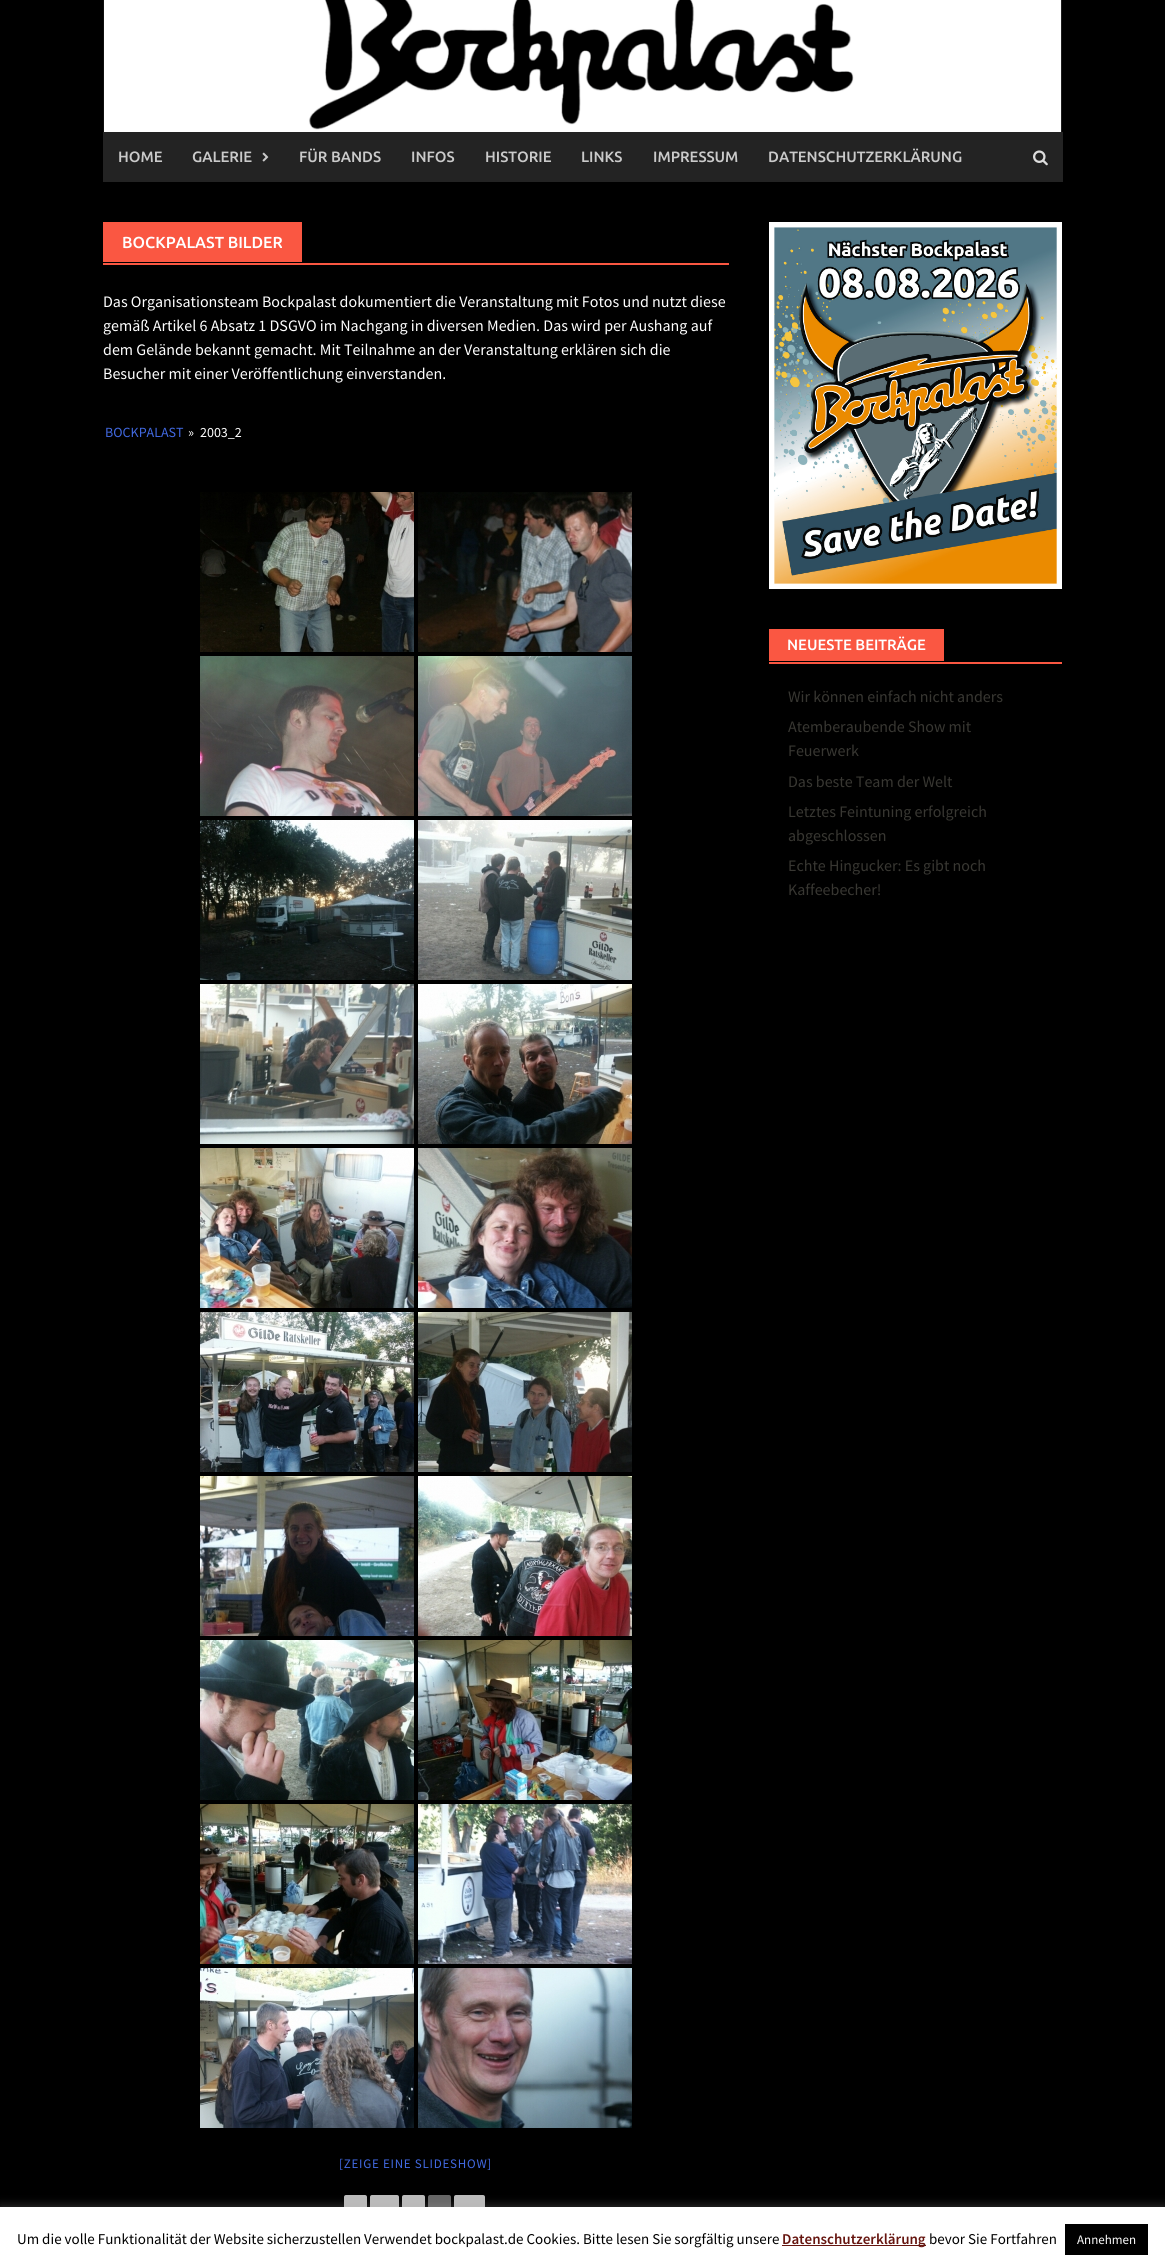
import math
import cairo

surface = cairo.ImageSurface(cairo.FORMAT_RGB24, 1165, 2267)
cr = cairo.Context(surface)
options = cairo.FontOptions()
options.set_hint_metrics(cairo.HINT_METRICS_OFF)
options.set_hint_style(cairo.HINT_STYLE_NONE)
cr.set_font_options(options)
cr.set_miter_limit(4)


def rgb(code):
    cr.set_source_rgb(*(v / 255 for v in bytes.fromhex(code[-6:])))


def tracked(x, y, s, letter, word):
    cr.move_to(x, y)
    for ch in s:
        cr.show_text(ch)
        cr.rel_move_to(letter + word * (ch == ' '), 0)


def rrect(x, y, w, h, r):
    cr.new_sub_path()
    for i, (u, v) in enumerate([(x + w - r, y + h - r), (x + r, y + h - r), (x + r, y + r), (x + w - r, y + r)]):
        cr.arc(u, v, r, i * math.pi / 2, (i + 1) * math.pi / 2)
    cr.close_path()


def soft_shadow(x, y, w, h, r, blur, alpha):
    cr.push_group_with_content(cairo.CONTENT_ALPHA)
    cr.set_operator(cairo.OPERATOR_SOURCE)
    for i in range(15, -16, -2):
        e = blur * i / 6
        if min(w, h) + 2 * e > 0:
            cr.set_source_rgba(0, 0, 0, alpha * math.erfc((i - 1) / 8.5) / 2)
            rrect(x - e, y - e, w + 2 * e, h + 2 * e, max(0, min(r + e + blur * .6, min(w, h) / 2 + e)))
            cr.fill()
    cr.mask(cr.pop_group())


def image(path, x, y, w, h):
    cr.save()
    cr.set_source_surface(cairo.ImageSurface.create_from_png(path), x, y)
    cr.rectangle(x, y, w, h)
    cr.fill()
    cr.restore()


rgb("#000000")
cr.paint()
image("img/1.png", 103, 0, 959, 132)
rgb("#232323")
cr.rectangle(103, 132, 960, 50)
cr.fill()
image("img/2.png", 262, 152, 7, 10)
image("img/3.png", 1033, 150, 15, 16)
rgb("#fa5742")
cr.rectangle(103, 263, 626, 2)
cr.fill()
cr.rectangle(103, 222, 199, 40)
cr.fill()
image("img/4.png", 200, 492, 214, 160)
image("img/5.png", 418, 492, 214, 160)
image("img/6.png", 200, 656, 214, 160)
image("img/7.png", 418, 656, 214, 160)
image("img/8.png", 200, 820, 214, 160)
image("img/9.png", 418, 820, 214, 160)
image("img/10.png", 200, 984, 214, 160)
image("img/11.png", 418, 984, 214, 160)
image("img/12.png", 200, 1148, 214, 160)
image("img/13.png", 418, 1148, 214, 160)
image("img/14.png", 200, 1312, 214, 160)
image("img/15.png", 418, 1312, 214, 160)
image("img/16.png", 200, 1476, 214, 160)
image("img/17.png", 418, 1476, 214, 160)
image("img/18.png", 200, 1640, 214, 160)
image("img/19.png", 418, 1640, 214, 160)
image("img/20.png", 200, 1804, 214, 160)
image("img/21.png", 418, 1804, 214, 160)
image("img/22.png", 200, 1968, 214, 160)
image("img/23.png", 418, 1968, 214, 160)
rgb("#bbbbbb")
rrect(344, 2195, 23, 26, 2)
cr.fill()
rrect(370, 2195, 29, 26, 2)
cr.fill()
rrect(402, 2195, 23, 26, 2)
cr.fill()
rgb("#666666")
rrect(428, 2195, 23, 26, 2)
cr.fill()
rgb("#bbbbbb")
rrect(454, 2195, 31, 26, 2)
cr.fill()
image("img/24.png", 769, 222, 293, 367)
rgb("#fa5742")
cr.rectangle(769, 662, 293, 2)
cr.fill()
cr.rectangle(769, 629, 175, 32)
cr.fill()
rgb("#acabab")
soft_shadow(0, 2206, 1165, 60, 0, 5, 0.3)
for x, y, w, h, color in [
    (0, 2207, 1165, 60, "#ffffff"),
    (782, 2245, 144, 1, "#66150f"),
    (1065, 2224, 83, 31, "#000000"),
]:
    rgb(color)
    cr.rectangle(x, y, w, h)
    cr.fill()
cr.select_font_face("Ubuntu Medium")
cr.set_font_size(15)
rgb("#cacaca")
for x, y, s in [
    (118, 162, "HOME"),
    (192, 162, "GALERIE"),
    (299, 162, "FÜR BANDS"),
    (411, 162, "INFOS"),
    (485, 162, "HISTORIE"),
    (581, 162, "LINKS"),
    (653, 162, "IMPRESSUM"),
    (768, 162, "DATENSCHUTZERKLÄRUNG"),
]:
    cr.move_to(x, y)
    cr.show_text(s)
cr.set_font_size(16)
rgb("#ffffff")
cr.move_to(122, 248)
cr.show_text("BOCKPALAST BILDER")
cr.select_font_face("Source Sans Pro")
for x, y, s in [
    (103, 307, "Das Organisationsteam Bockpalast dokumentiert die Veranstaltung mit Fotos und nutzt diese"),
    (103, 331, "gemäß Artikel 6 Absatz 1 DSGVO im Nachgang in diversen Medien. Das wird per Aushang auf"),
    (103, 355, "dem Gelände bekannt gemacht. Mit Teilnahme an der Veranstaltung erklären sich die"),
    (103, 379, "Besucher mit einer Veröffentlichung einverstanden."),
]:
    cr.move_to(x, y)
    cr.show_text(s)
cr.set_font_size(14)
rgb("#4169e1")
cr.move_to(105, 437)
cr.show_text("BOCKPALAST")
rgb("#ffffff")
cr.move_to(188, 437)
cr.show_text("»")
cr.move_to(200, 437)
cr.show_text("2003_2")
cr.set_font_size(13)
rgb("#4169e1")
tracked(339, 2168, "[ZEIGE EINE SLIDESHOW]", 0.75, 0)
cr.select_font_face("Ubuntu Medium")
cr.set_font_size(15)
rgb("#ffffff")
cr.move_to(787, 650)
cr.show_text("NEUESTE BEITRÄGE")
cr.select_font_face("Source Sans Pro")
cr.set_font_size(16)
rgb("#383732")
for x, y, s in [
    (788, 702, "Wir können einfach nicht anders"),
    (788, 732, "Atemberaubende Show mit"),
    (788, 756, "Feuerwerk"),
    (788, 787, "Das beste Team der Welt"),
    (788, 817, "Letztes Feintuning erfolgreich"),
    (788, 841, "abgeschlossen"),
    (788, 871, "Echte Hingucker: Es gibt noch"),
    (788, 895, "Kaffeebecher!"),
]:
    cr.move_to(x, y)
    cr.show_text(s)
cr.set_font_size(15)
rgb("#000000")
cr.move_to(17, 2244)
cr.show_text("Um die volle Funktionalität der Website sicherzustellen Verwendet bockpalast.de Cookies. Bitte lesen Sie sorgfältig unsere")
cr.select_font_face("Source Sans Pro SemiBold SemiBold")
rgb("#66150f")
cr.move_to(782, 2244)
cr.show_text("Datenschutzerklärung")
cr.select_font_face("Source Sans Pro")
rgb("#000000")
cr.move_to(929, 2244)
cr.show_text("bevor Sie Fortfahren")
cr.set_font_size(13)
rgb("#ffffff")
cr.move_to(1077, 2244)
cr.show_text("Annehmen")
surface.write_to_png("page.png")
